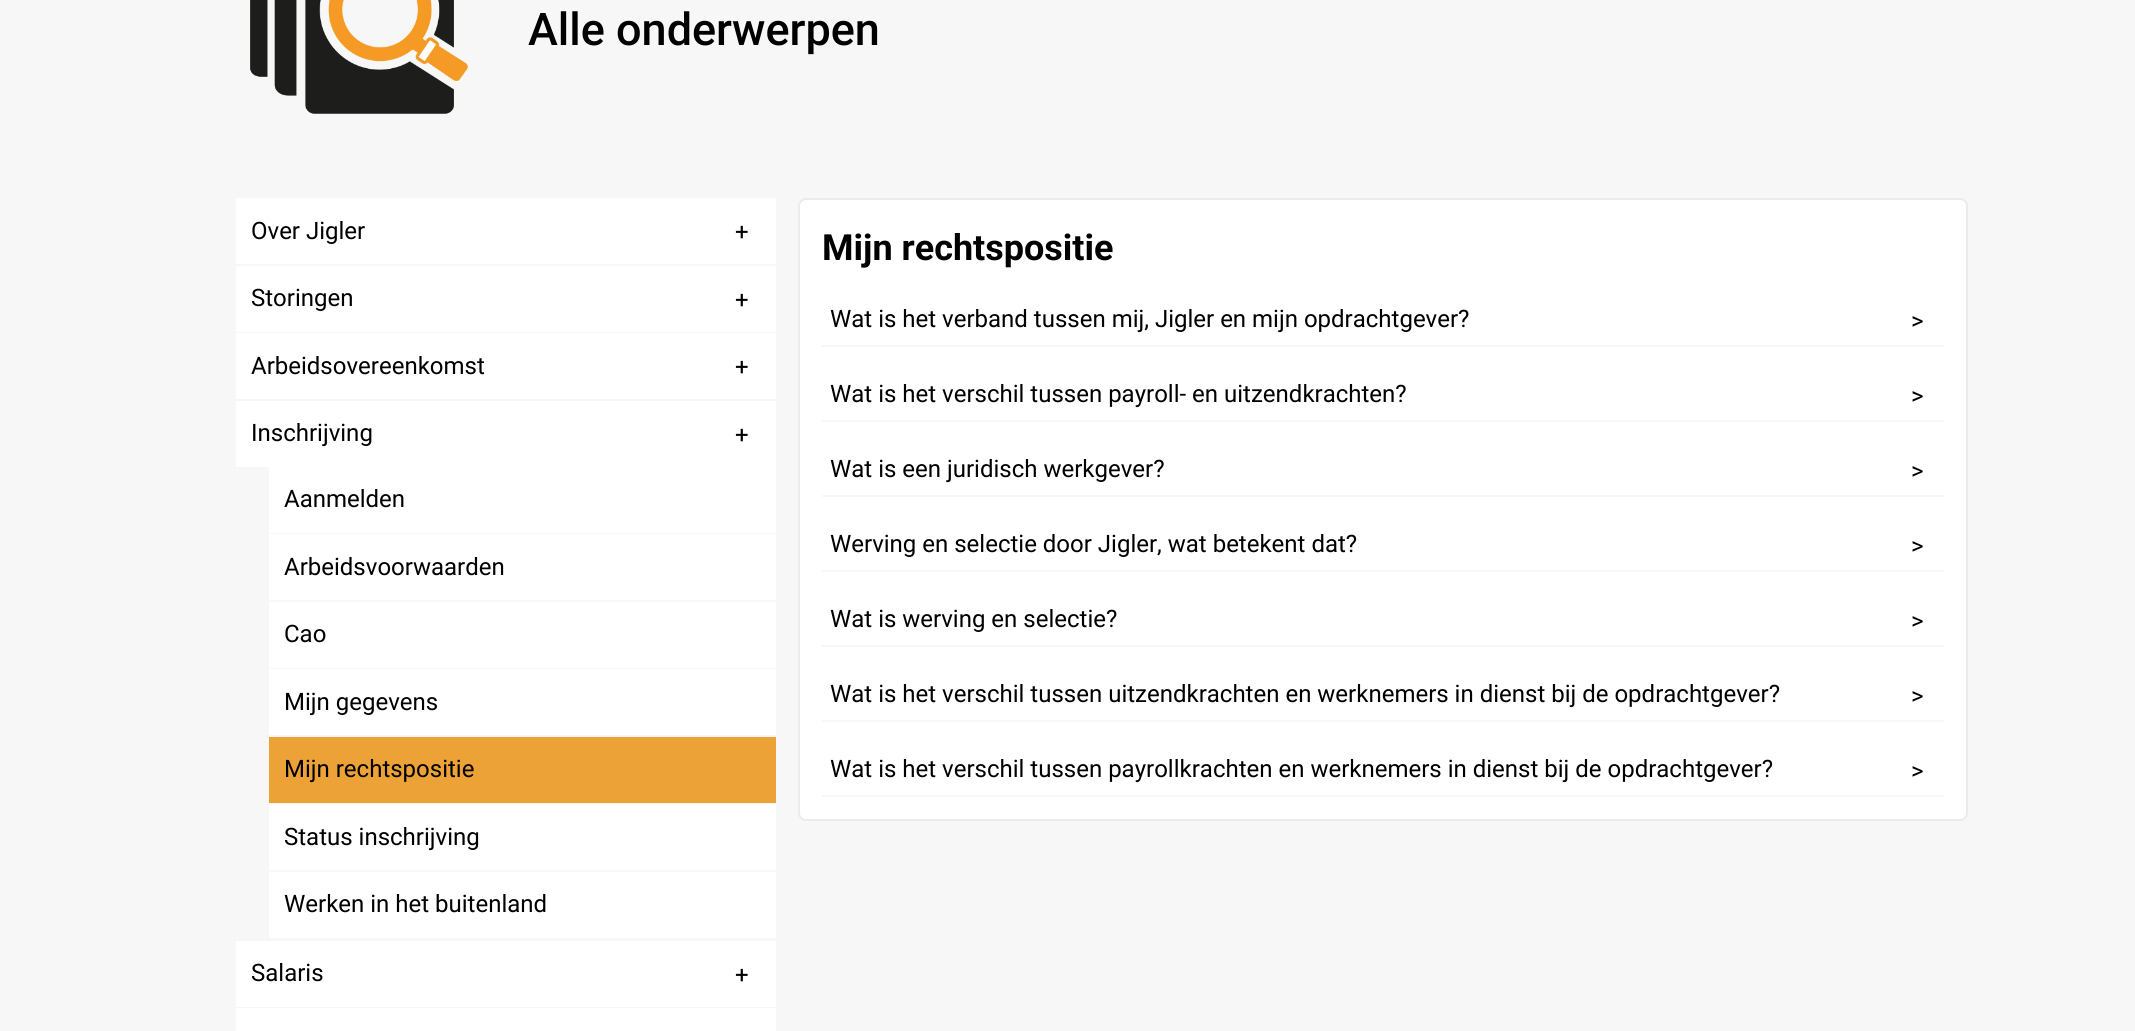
import math
import cairo

surface = cairo.ImageSurface(cairo.FORMAT_RGB24, 2135, 1031)
cr = cairo.Context(surface)
options = cairo.FontOptions()
options.set_hint_metrics(cairo.HINT_METRICS_OFF)
options.set_hint_style(cairo.HINT_STYLE_NONE)
cr.set_font_options(options)
cr.set_miter_limit(4)


def rgb(code):
    cr.set_source_rgb(*(v / 255 for v in bytes.fromhex(code[-6:])))


def rrect(x, y, w, h, r):
    cr.new_sub_path()
    for i, (u, v) in enumerate([(x + w - r, y + h - r), (x + r, y + h - r), (x + r, y + r), (x + w - r, y + r)]):
        cr.arc(u, v, r, i * math.pi / 2, (i + 1) * math.pi / 2)
    cr.close_path()


def image(path, x, y, w, h):
    cr.save()
    cr.set_source_surface(cairo.ImageSurface.create_from_png(path), x, y)
    cr.rectangle(x, y, w, h)
    cr.fill()
    cr.restore()


rgb("#f7f7f7")
cr.paint()
image("img/1.png", 250, 0, 218, 114)
for x, y, w, h, color in [
    (236, 198, 540, 66, "#ffffff"),
    (236, 266, 540, 66, "#ffffff"),
    (236, 333, 540, 66, "#ffffff"),
    (236, 401, 540, 66, "#ffffff"),
    (269, 467, 507, 66, "#ffffff"),
    (269, 534, 507, 66, "#ffffff"),
    (269, 602, 507, 66, "#ffffff"),
    (269, 669, 507, 66, "#ffffff"),
    (269, 737, 507, 66, "#eca236"),
    (269, 804, 507, 66, "#ffffff"),
    (269, 872, 507, 66, "#ffffff"),
    (236, 941, 540, 66, "#ffffff"),
    (236, 1008, 540, 23, "#ffffff"),
]:
    rgb(color)
    cr.rectangle(x, y, w, h)
    cr.fill()
rrect(799, 199, 1168, 621, 7)
cr.fill_preserve()
rgb("#ebebeb")
cr.stroke()
for x, y, w, h, color in [
    (822, 345, 1122, 2, "#f7f7f7"),
    (822, 420, 1122, 2, "#f7f7f7"),
    (822, 495, 1122, 2, "#f7f7f7"),
    (822, 570, 1122, 2, "#f7f7f7"),
    (822, 645, 1122, 2, "#f7f7f7"),
    (822, 720, 1122, 2, "#f7f7f7"),
    (822, 795, 1122, 2, "#f7f7f7"),
]:
    rgb(color)
    cr.rectangle(x, y, w, h)
    cr.fill()
cr.select_font_face("Roboto Medium")
cr.set_font_size(45)
rgb("#000000")
cr.move_to(528, 45)
cr.show_text("Alle onderwerpen")
cr.select_font_face("Roboto")
cr.set_font_size(24)
for x, y, s in [
    (251, 239, "Over Jigler"),
    (735, 240, "+"),
    (251, 306, "Storingen"),
    (735, 308, "+"),
    (251, 374, "Arbeidsovereenkomst"),
    (735, 375, "+"),
    (251, 441, "Inschrijving"),
    (735, 443, "+"),
    (284, 507, "Aanmelden"),
    (284, 575, "Arbeidsvoorwaarden"),
    (284, 642, "Cao"),
    (284, 710, "Mijn gegevens"),
    (284, 777, "Mijn rechtspositie"),
    (284, 845, "Status inschrijving"),
    (284, 912, "Werken in het buitenland"),
    (251, 981, "Salaris"),
    (735, 983, "+"),
]:
    cr.move_to(x, y)
    cr.show_text(s)
cr.select_font_face("Roboto", cairo.FONT_SLANT_NORMAL, cairo.FONT_WEIGHT_BOLD)
cr.set_font_size(36)
cr.move_to(822, 260)
cr.show_text("Mijn rechtspositie")
cr.select_font_face("Roboto")
cr.set_font_size(24)
for x, y, s in [
    (830, 327, "Wat is het verband tussen mij, Jigler en mijn opdrachtgever?"),
    (1911, 329, ">"),
    (830, 402, "Wat is het verschil tussen payroll- en uitzendkrachten?"),
    (1911, 404, ">"),
    (830, 477, "Wat is een juridisch werkgever?"),
    (1911, 479, ">"),
    (830, 552, "Werving en selectie door Jigler, wat betekent dat?"),
    (1911, 554, ">"),
    (830, 627, "Wat is werving en selectie?"),
    (1911, 629, ">"),
    (830, 702, "Wat is het verschil tussen uitzendkrachten en werknemers in dienst bij de opdrachtgever?"),
    (1911, 704, ">"),
    (830, 777, "Wat is het verschil tussen payrollkrachten en werknemers in dienst bij de opdrachtgever?"),
    (1911, 779, ">"),
]:
    cr.move_to(x, y)
    cr.show_text(s)
surface.write_to_png("page.png")
